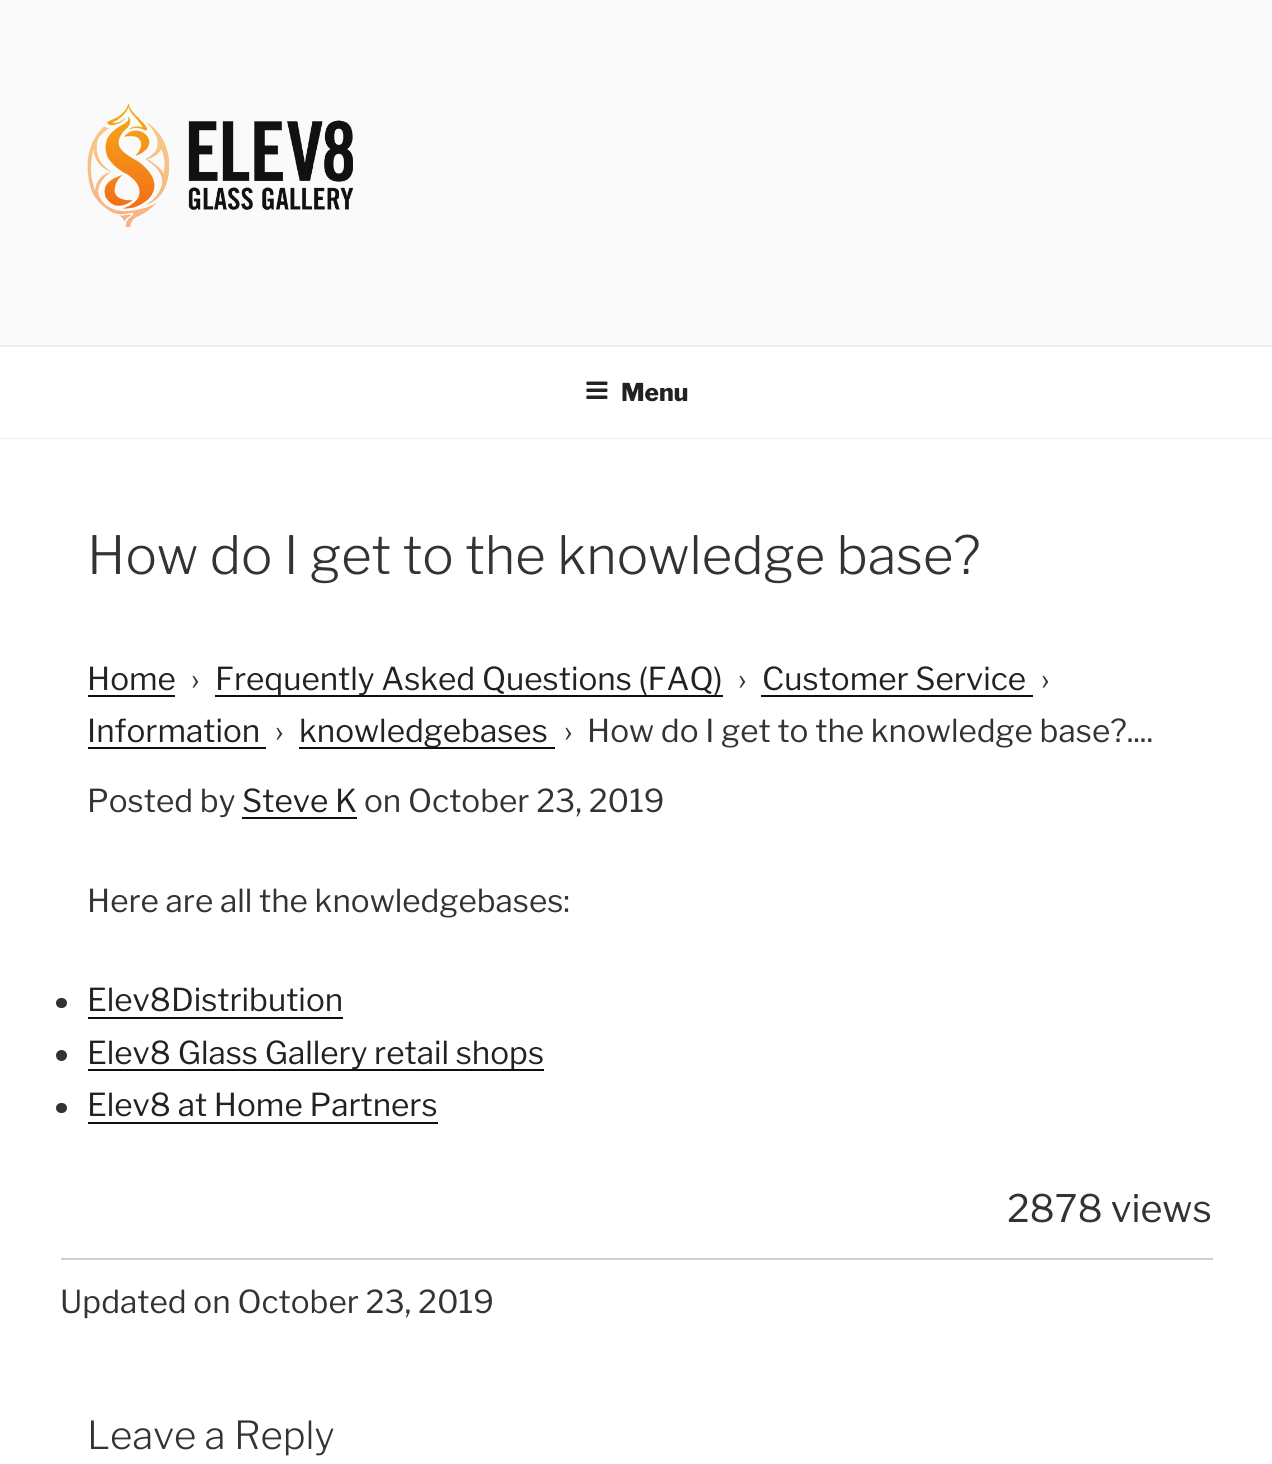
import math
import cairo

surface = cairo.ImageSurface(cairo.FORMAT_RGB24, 1272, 1464)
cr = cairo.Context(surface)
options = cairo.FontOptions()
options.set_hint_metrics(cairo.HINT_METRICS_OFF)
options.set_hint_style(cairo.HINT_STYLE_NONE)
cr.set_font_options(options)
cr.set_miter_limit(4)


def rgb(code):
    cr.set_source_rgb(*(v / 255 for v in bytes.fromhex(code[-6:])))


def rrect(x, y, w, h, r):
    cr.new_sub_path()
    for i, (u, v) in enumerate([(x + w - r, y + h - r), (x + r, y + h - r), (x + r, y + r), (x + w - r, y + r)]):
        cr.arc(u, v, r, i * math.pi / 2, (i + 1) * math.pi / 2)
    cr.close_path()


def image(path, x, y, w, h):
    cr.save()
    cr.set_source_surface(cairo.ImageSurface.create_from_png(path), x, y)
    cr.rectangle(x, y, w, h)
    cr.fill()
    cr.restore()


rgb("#fafafa")
cr.paint()
image("img/1.png", 87, 103, 266, 124)
for x, y, w, h, color in [
    (0, 347, 1272, 91, "#ffffff"),
    (0, 345, 1272, 2, "#eeeeee"),
    (0, 438, 1272, 1, "#eeeeee"),
]:
    rgb(color)
    cr.rectangle(x, y, w, h)
    cr.fill()
image("img/2.png", 586, 381, 22, 18)
for x, y, w, h, color in [
    (0, 439, 1272, 1025, "#ffffff"),
    (88, 695, 87, 2, "#0f0f0f"),
    (215, 695, 508, 2, "#0f0f0f"),
    (761, 695, 272, 2, "#0f0f0f"),
    (88, 747, 178, 2, "#0f0f0f"),
    (299, 747, 256, 2, "#0f0f0f"),
    (242, 817, 115, 2, "#0f0f0f"),
]:
    rgb(color)
    cr.rectangle(x, y, w, h)
    cr.fill()
rgb("#333333")
rrect(56, 998, 11, 10, 5)
cr.fill()
rgb("#0f0f0f")
cr.rectangle(88, 1017, 255, 2)
cr.fill()
rgb("#333333")
cr.arc(61.5, 1055.5, 5.5, 0, 2 * math.pi)
cr.fill()
rgb("#0f0f0f")
cr.rectangle(88, 1069, 456, 2)
cr.fill()
rgb("#333333")
rrect(56, 1103, 11, 10, 5)
cr.fill()
rgb("#0f0f0f")
cr.rectangle(88, 1122, 350, 2)
cr.fill()
rgb("#d1d1d1")
cr.rectangle(61, 1258, 1152, 2)
cr.fill()
cr.select_font_face("Libre Franklin Thin")
cr.set_font_size(24.5)
rgb("#222222")
cr.move_to(621, 401)
cr.show_text("Menu")
cr.select_font_face("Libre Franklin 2 Thin")
cr.set_font_size(52.5)
rgb("#333333")
cr.move_to(87, 574)
cr.show_text("How do I get to the knowledge base?")
cr.select_font_face("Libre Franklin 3 Thin")
cr.set_font_size(31.5)
rgb("#222222")
cr.move_to(87, 690)
cr.show_text("Home")
rgb("#333333")
cr.move_to(191, 690)
cr.show_text("›")
rgb("#222222")
cr.move_to(215, 690)
cr.show_text("Frequently Asked Questions (FAQ)")
rgb("#333333")
cr.move_to(738, 690)
cr.show_text("›")
rgb("#222222")
cr.move_to(762, 690)
cr.show_text("Customer Service")
rgb("#333333")
cr.move_to(1041, 690)
cr.show_text("›")
rgb("#222222")
cr.move_to(87, 742)
cr.show_text("Information")
rgb("#333333")
cr.move_to(275, 742)
cr.show_text("›")
rgb("#222222")
cr.move_to(299, 742)
cr.show_text("knowledgebases")
rgb("#333333")
for x, y, s in [
    (564, 742, "›"),
    (587, 742, "How do I get to the knowledge base?...."),
    (87, 812, "Posted by"),
]:
    cr.move_to(x, y)
    cr.show_text(s)
rgb("#222222")
cr.move_to(242, 812)
cr.show_text("Steve K")
rgb("#333333")
cr.move_to(364, 812)
cr.show_text("on October 23, 2019")
cr.move_to(87, 912)
cr.show_text("Here are all the knowledgebases:")
rgb("#222222")
for x, y, s in [
    (87, 1011, "Elev8Distribution"),
    (87, 1064, "Elev8 Glass Gallery retail shops"),
    (87, 1116, "Elev8 at Home Partners"),
]:
    cr.move_to(x, y)
    cr.show_text(s)
cr.set_font_size(37.75)
rgb("#333333")
cr.move_to(1007, 1222)
cr.show_text("2878 views")
cr.set_font_size(31.5)
cr.move_to(60, 1313)
cr.show_text("Updated on October 23, 2019")
cr.select_font_face("Libre Franklin 2 Thin")
cr.set_font_size(38.5)
cr.move_to(87, 1449)
cr.show_text("Leave a Reply")
surface.write_to_png("page.png")
